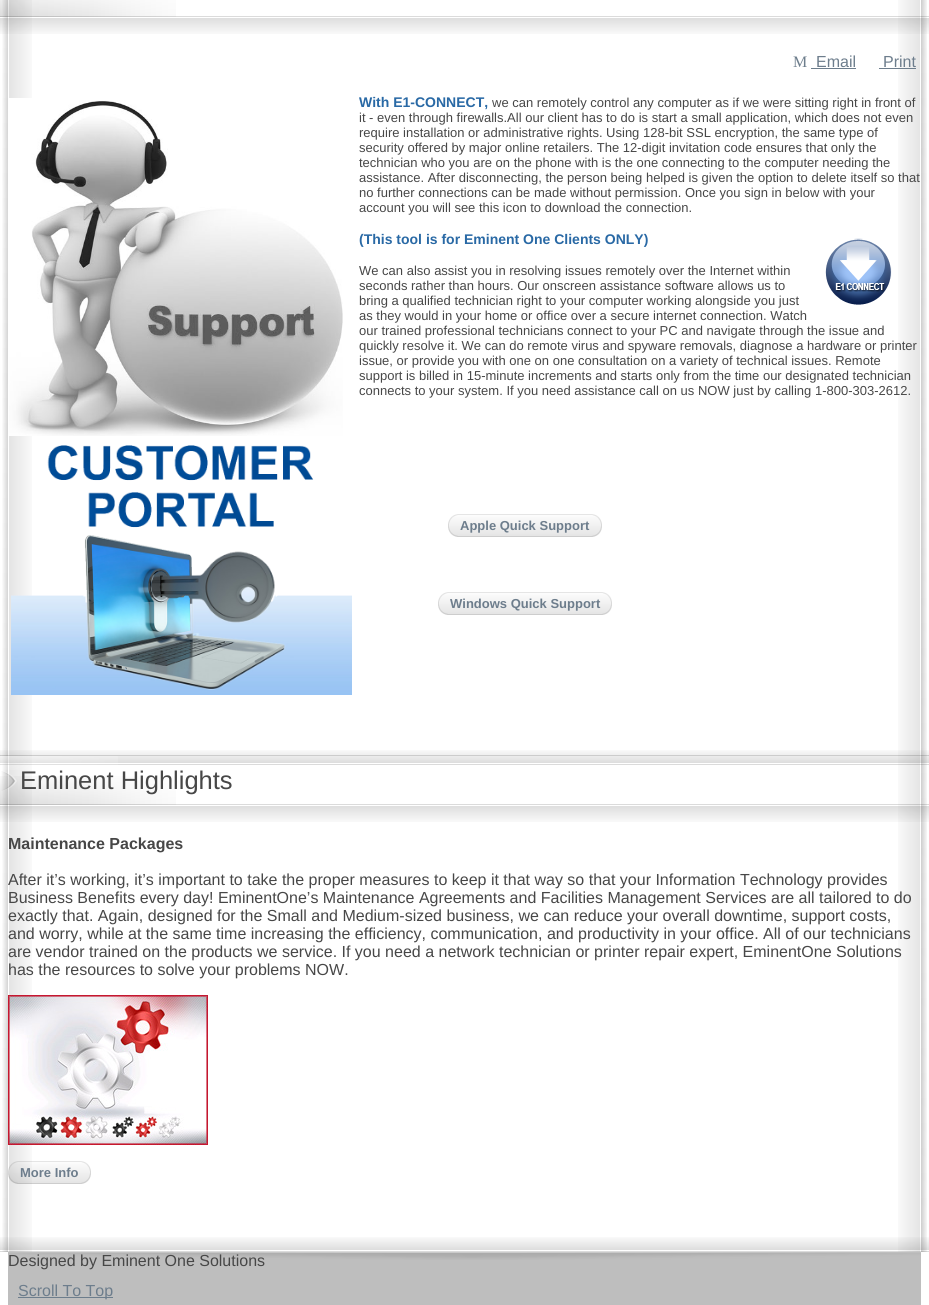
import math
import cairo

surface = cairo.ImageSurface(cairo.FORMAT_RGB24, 929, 1305)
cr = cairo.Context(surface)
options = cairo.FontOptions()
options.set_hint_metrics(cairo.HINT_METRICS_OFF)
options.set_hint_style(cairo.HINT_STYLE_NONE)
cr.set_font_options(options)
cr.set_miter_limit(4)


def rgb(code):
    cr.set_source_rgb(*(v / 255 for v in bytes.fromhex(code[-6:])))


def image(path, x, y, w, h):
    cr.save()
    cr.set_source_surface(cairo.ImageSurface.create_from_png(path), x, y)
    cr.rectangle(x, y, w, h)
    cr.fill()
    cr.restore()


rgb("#ffffff")
cr.paint()
image("img/1.png", 2, 0, 6, 1252)
image("img/2.png", 921, 0, 6, 1252)
image("img/3.png", 9, 0, 23, 1252)
image("img/4.png", 898, 0, 22, 1252)
image("img/5.png", 0, 0, 176, 17)
image("img/6.png", 0, 16, 929, 18)
rgb("#6d7d8c")
cr.rectangle(811, 68, 45, 1)
cr.fill()
cr.rectangle(879, 68, 37, 1)
cr.fill()
image("img/7.png", 9, 98, 334, 338)
image("img/8.png", 825, 238, 67, 67)
image("img/9.png", 11, 445, 341, 250)
image("img/10.png", 458, 514, 144, 23)
image("img/11.png", 448, 514, 10, 23)
image("img/12.png", 448, 592, 164, 23)
image("img/11.png", 438, 592, 10, 23)
image("img/13.png", 10, 750, 909, 15)
image("img/14.png", 0, 750, 10, 15)
image("img/15.png", 919, 750, 10, 15)
cr.set_source_rgba(0, 0, 0, 0.14)
cr.rectangle(10, 755, 909, 1)
cr.fill()
cr.rectangle(0, 755, 10, 1)
cr.fill()
cr.rectangle(919, 755, 10, 1)
cr.fill()
image("img/16.png", 0, 776, 176, 29)
image("img/17.png", 0, 756, 118, 14)
image("img/18.png", 1, 771, 16, 20)
image("img/19.png", 0, 804, 929, 18)
image("img/20.png", 8, 995, 200, 150)
image("img/21.png", 18, 1161, 73, 23)
image("img/22.png", 8, 1161, 10, 23)
image("img/13.png", 10, 1237, 909, 15)
image("img/23.png", 0, 1237, 10, 15)
image("img/24.png", 919, 1237, 10, 15)
rgb("#bebebe")
cr.rectangle(8, 1252, 913, 53)
cr.fill()
image("img/25.png", 8, 1252, 913, 8)
rgb("#6d7d8c")
cr.rectangle(18, 1297, 95, 1)
cr.fill()
cr.select_font_face("Liberation Serif")
cr.set_font_size(16)
cr.move_to(793, 67)
cr.show_text("M")
cr.select_font_face("Liberation Sans")
cr.move_to(816, 67)
cr.show_text("Email")
cr.move_to(883, 67)
cr.show_text("Print")
cr.select_font_face("Liberation Sans", cairo.FONT_SLANT_NORMAL, cairo.FONT_WEIGHT_BOLD)
cr.set_font_size(14)
rgb("#2969a5")
cr.move_to(359, 107)
cr.show_text("With E1-CONNECT,")
cr.select_font_face("Liberation Sans")
cr.set_font_size(13)
rgb("#474747")
for x, y, s in [
    (492, 107, "we can remotely control any computer as if we were sitting right in front of"),
    (359, 122, "it - even through firewalls.All our client has to do is start a small application, which does not even"),
    (359, 137, "require installation or administrative rights. Using 128-bit SSL encryption, the same type of"),
    (359, 152, "security offered by major online retailers. The 12-digit invitation code ensures that only the"),
    (359, 167, "technician who you are on the phone with is the one connecting to the computer needing the"),
    (359, 182, "assistance. After disconnecting, the person being helped is given the option to delete itself so that"),
    (359, 197, "no further connections can be made without permission. Once you sign in below with your"),
    (359, 212, "account you will see this icon to download the connection."),
]:
    cr.move_to(x, y)
    cr.show_text(s)
cr.select_font_face("Liberation Sans", cairo.FONT_SLANT_NORMAL, cairo.FONT_WEIGHT_BOLD)
cr.set_font_size(14)
rgb("#2969a5")
cr.move_to(359, 244)
cr.show_text("(This tool is for Eminent One Clients ONLY)")
cr.select_font_face("Liberation Sans")
cr.set_font_size(13)
rgb("#474747")
for x, y, s in [
    (359, 275, "We can also assist you in resolving issues remotely over the Internet within"),
    (359, 290, "seconds rather than hours. Our onscreen assistance software allows us to"),
    (359, 305, "bring a qualified technician right to your computer working alongside you just"),
    (359, 320, "as they would in your home or office over a secure internet connection. Watch"),
    (359, 335, "our trained professional technicians connect to your PC and navigate through the issue and"),
    (359, 350, "quickly resolve it. We can do remote virus and spyware removals, diagnose a hardware or printer"),
    (359, 365, "issue, or provide you with one on one consultation on a variety of technical issues. Remote"),
    (359, 380, "support is billed in 15-minute increments and starts only from the time our designated technician"),
    (359, 395, "connects to your system. If you need assistance call on us NOW just by calling 1-800-303-2612."),
]:
    cr.move_to(x, y)
    cr.show_text(s)
cr.select_font_face("Liberation Sans", cairo.FONT_SLANT_NORMAL, cairo.FONT_WEIGHT_BOLD)
rgb("#6d7d8c")
cr.move_to(460, 530)
cr.show_text("Apple Quick Support")
cr.move_to(450, 608)
cr.show_text("Windows Quick Support")
cr.select_font_face("Liberation Sans")
cr.set_font_size(25.5)
rgb("#474747")
cr.move_to(20, 789)
cr.show_text("Eminent Highlights")
cr.select_font_face("Liberation Sans", cairo.FONT_SLANT_NORMAL, cairo.FONT_WEIGHT_BOLD)
cr.set_font_size(16)
cr.move_to(8, 849)
cr.show_text("Maintenance Packages")
cr.select_font_face("Liberation Sans")
for x, y, s in [
    (8, 885, "After it’s working, it’s important to take the proper measures to keep it that way so that your Information Technology provides"),
    (8, 903, "Business Benefits every day! EminentOne’s Maintenance Agreements and Facilities Management Services are all tailored to do"),
    (8, 921, "exactly that. Again, designed for the Small and Medium-sized business, we can reduce your overall downtime, support costs,"),
    (8, 939, "and worry, while at the same time increasing the efficiency, communication, and productivity in your office. All of our technicians"),
    (8, 957, "are vendor trained on the products we service. If you need a network technician or printer repair expert, EminentOne Solutions"),
    (8, 975, "has the resources to solve your problems NOW."),
]:
    cr.move_to(x, y)
    cr.show_text(s)
cr.select_font_face("Liberation Sans", cairo.FONT_SLANT_NORMAL, cairo.FONT_WEIGHT_BOLD)
cr.set_font_size(13)
rgb("#6d7d8c")
cr.move_to(20, 1177)
cr.show_text("More Info")
cr.select_font_face("Liberation Sans")
cr.set_font_size(16)
rgb("#474747")
cr.move_to(8, 1266)
cr.show_text("Designed by Eminent One Solutions")
rgb("#6d7d8c")
cr.move_to(18, 1296)
cr.show_text("Scroll To Top")
surface.write_to_png("page.png")
